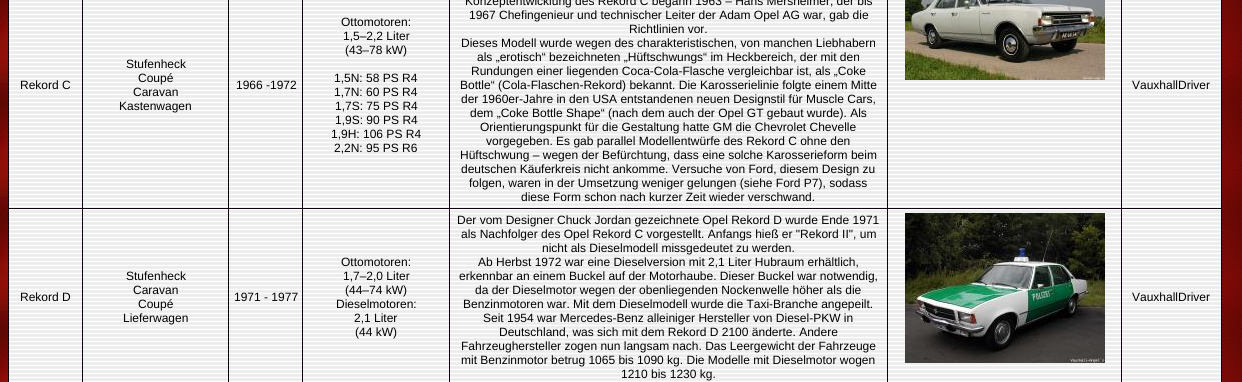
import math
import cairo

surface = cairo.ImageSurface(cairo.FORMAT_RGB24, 1242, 382)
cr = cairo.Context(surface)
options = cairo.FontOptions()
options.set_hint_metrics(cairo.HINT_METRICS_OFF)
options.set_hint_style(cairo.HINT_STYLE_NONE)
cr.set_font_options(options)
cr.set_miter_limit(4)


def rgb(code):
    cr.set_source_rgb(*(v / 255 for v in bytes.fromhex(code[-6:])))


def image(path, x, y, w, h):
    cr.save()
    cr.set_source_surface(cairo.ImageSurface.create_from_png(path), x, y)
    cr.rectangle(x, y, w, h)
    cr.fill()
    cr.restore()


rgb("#ffffff")
cr.paint()
image("img/1.png", 0, 0, 1242, 382)
rgb("#130011")
cr.rectangle(8, 0, 1214, 382)
cr.fill()
image("img/2.png", 9, 0, 73, 208)
image("img/3.png", 83, 0, 145, 208)
image("img/2.png", 229, 0, 73, 208)
image("img/4.png", 303, 0, 146, 208)
image("img/5.png", 450, 0, 437, 208)
image("img/6.png", 888, 0, 233, 208)
image("img/7.png", 905, 0, 200, 80)
image("img/8.png", 1122, 0, 99, 208)
rgb("#ffffff")
cr.rectangle(9, 209, 73, 173)
cr.fill()
image("img/9.png", 9, 210, 73, 171)
cr.rectangle(83, 209, 145, 173)
cr.fill()
image("img/10.png", 83, 210, 145, 171)
cr.rectangle(229, 209, 73, 173)
cr.fill()
image("img/9.png", 229, 210, 73, 171)
cr.rectangle(303, 209, 146, 173)
cr.fill()
image("img/11.png", 303, 210, 146, 171)
cr.rectangle(450, 209, 437, 173)
cr.fill()
image("img/12.png", 450, 210, 437, 171)
cr.rectangle(888, 209, 233, 173)
cr.fill()
image("img/13.png", 888, 210, 233, 171)
image("img/14.png", 905, 213, 200, 150)
cr.rectangle(1122, 209, 99, 173)
cr.fill()
image("img/15.png", 1122, 210, 99, 171)
cr.select_font_face("Liberation Sans")
cr.set_font_size(12)
rgb("#000000")
for x, y, s in [
    (20, 89, "Rekord C"),
    (126, 68, "Stufenheck"),
    (138, 82, "Coupé"),
    (133, 96, "Caravan"),
    (119, 110, "Kastenwagen"),
    (236, 89, "1966 -1972"),
    (341, 26, "Ottomotoren:"),
    (343, 40, "1,5–2,2 Liter"),
    (345, 54, "(43–78 kW)"),
    (334, 82, "1,5N: 58 PS R4"),
    (334, 96, "1,7N: 60 PS R4"),
    (335, 110, "1,7S: 75 PS R4"),
    (335, 124, "1,9S: 90 PS R4"),
    (331, 138, "1,9H: 106 PS R4"),
    (334, 152, "2,2N: 95 PS R6"),
    (465, 5, "Konzeptentwicklung des Rekord C begann 1963 – Hans Mersheimer, der bis"),
    (469, 19, "1967 Chefingenieur und technischer Leiter der Adam Opel AG war, gab die"),
    (629, 33, "Richtlinien vor."),
    (461, 47, "Dieses Modell wurde wegen des charakteristischen, von manchen Liebhabern"),
    (477, 61, "als „erotisch“ bezeichneten „Hüftschwungs“ im Heckbereich, der mit den"),
    (471, 75, "Rundungen einer liegenden Coca-Cola-Flasche vergleichbar ist, als „Coke"),
    (460, 89, "Bottle“ (Cola-Flaschen-Rekord) bekannt. Die Karosserielinie folgte einem Mitte"),
    (461, 103, "der 1960er-Jahre in den USA entstandenen neuen Designstil für Muscle Cars,"),
    (470, 117, "dem „Coke Bottle Shape“ (nach dem auch der Opel GT gebaut wurde). Als"),
    (480, 131, "Orientierungspunkt für die Gestaltung hatte GM die Chevrolet Chevelle"),
    (486, 145, "vorgegeben. Es gab parallel Modellentwürfe des Rekord C ohne den"),
    (460, 159, "Hüftschwung – wegen der Befürchtung, dass eine solche Karosserieform beim"),
    (461, 173, "deutschen Käuferkreis nicht ankomme. Versuche von Ford, diesem Design zu"),
    (469, 187, "folgen, waren in der Umsetzung weniger gelungen (siehe Ford P7), sodass"),
    (521, 201, "diese Form schon nach kurzer Zeit wieder verschwand."),
    (1132, 89, "VauxhallDriver"),
    (20, 301, "Rekord D"),
    (126, 280, "Stufenheck"),
    (133, 294, "Caravan"),
    (138, 308, "Coupé"),
    (123, 322, "Lieferwagen"),
    (234, 301, "1971 - 1977"),
    (341, 266, "Ottomotoren:"),
    (343, 280, "1,7–2,0 Liter"),
    (345, 294, "(44–74 kW)"),
    (336, 308, "Dieselmotoren:"),
    (354, 322, "2,1 Liter"),
    (355, 336, "(44 kW)"),
    (457, 224, "Der vom Designer Chuck Jordan gezeichnete Opel Rekord D wurde Ende 1971"),
    (461, 238, "als Nachfolger des Opel Rekord C vorgestellt. Anfangs hieß er \"Rekord II\", um"),
    (542, 252, "nicht als Dieselmodell missgedeutet zu werden."),
    (478, 266, "Ab Herbst 1972 war eine Dieselversion mit 2,1 Liter Hubraum erhältlich,"),
    (459, 280, "erkennbar an einem Buckel auf der Motorhaube. Dieser Buckel war notwendig,"),
    (475, 294, "da der Dieselmotor wegen der obenliegenden Nockenwelle höher als die"),
    (463, 308, "Benzinmotoren war. Mit dem Dieselmodell wurde die Taxi-Branche angepeilt."),
    (483, 322, "Seit 1954 war Mercedes-Benz alleiniger Hersteller von Diesel-PKW in"),
    (499, 336, "Deutschland, was sich mit dem Rekord D 2100 änderte. Andere"),
    (461, 350, "Fahrzeughersteller zogen nun langsam nach. Das Leergewicht der Fahrzeuge"),
    (461, 364, "mit Benzinmotor betrug 1065 bis 1090 kg. Die Modelle mit Dieselmotor wogen"),
    (621, 378, "1210 bis 1230 kg."),
    (1132, 301, "VauxhallDriver"),
]:
    cr.move_to(x, y)
    cr.show_text(s)
surface.write_to_png("page.png")
